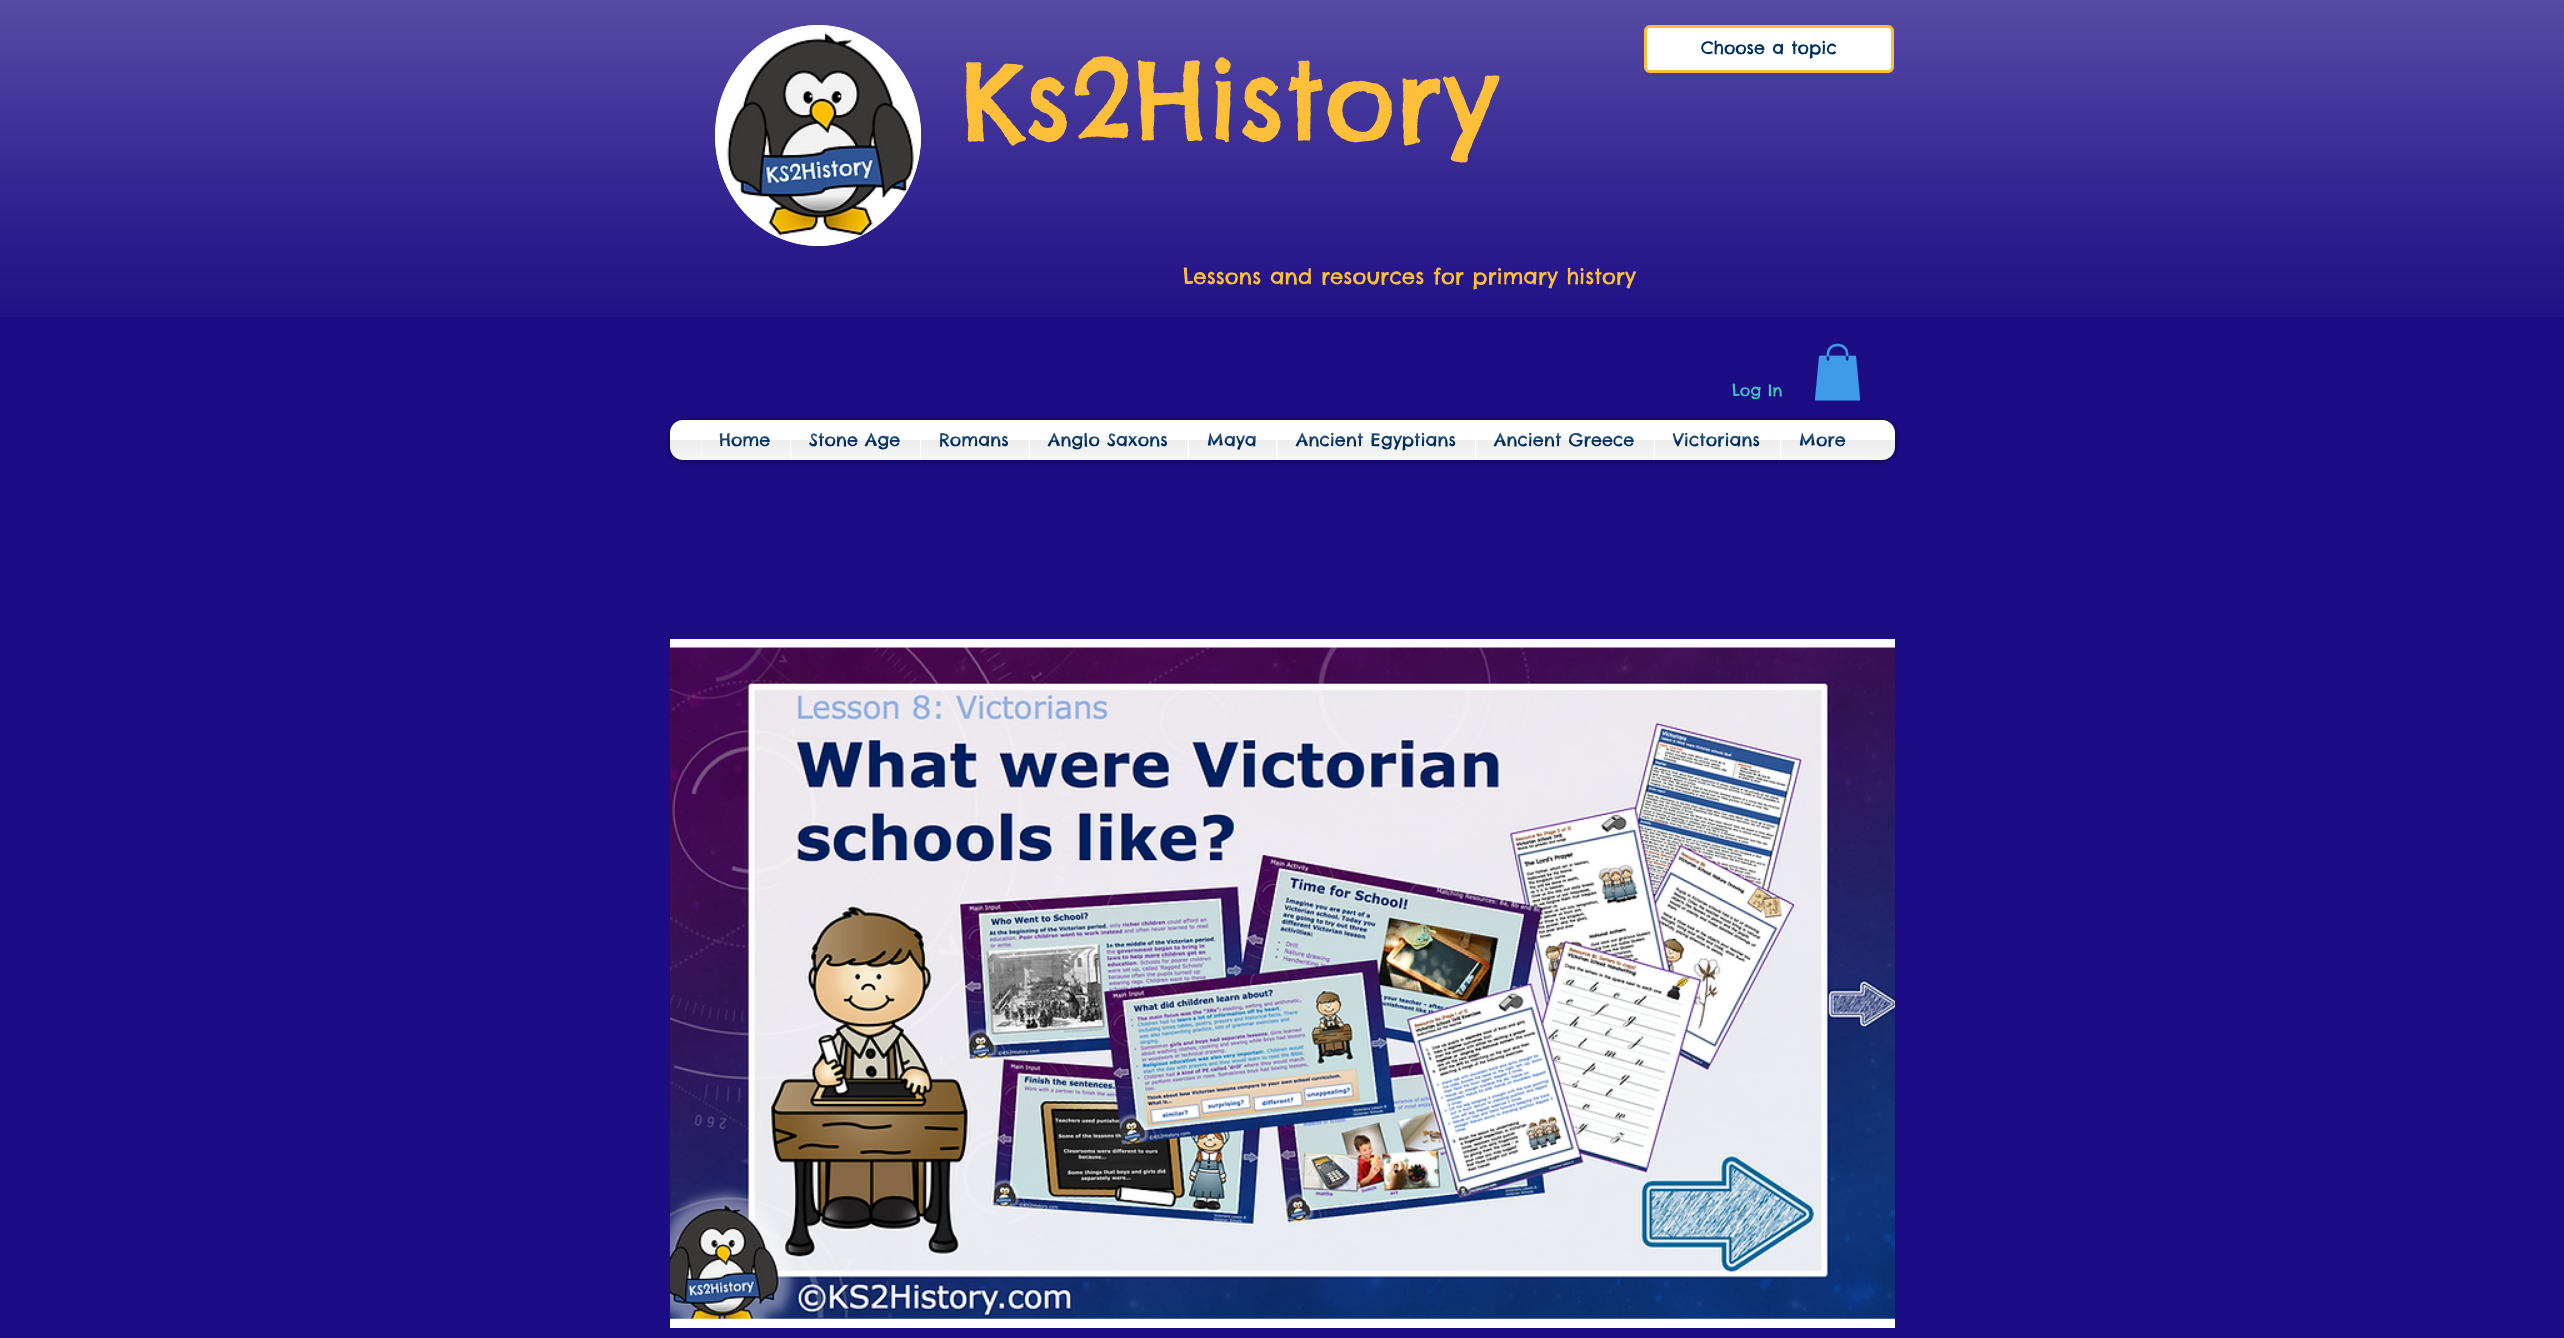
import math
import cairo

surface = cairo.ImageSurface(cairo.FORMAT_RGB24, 2564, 1338)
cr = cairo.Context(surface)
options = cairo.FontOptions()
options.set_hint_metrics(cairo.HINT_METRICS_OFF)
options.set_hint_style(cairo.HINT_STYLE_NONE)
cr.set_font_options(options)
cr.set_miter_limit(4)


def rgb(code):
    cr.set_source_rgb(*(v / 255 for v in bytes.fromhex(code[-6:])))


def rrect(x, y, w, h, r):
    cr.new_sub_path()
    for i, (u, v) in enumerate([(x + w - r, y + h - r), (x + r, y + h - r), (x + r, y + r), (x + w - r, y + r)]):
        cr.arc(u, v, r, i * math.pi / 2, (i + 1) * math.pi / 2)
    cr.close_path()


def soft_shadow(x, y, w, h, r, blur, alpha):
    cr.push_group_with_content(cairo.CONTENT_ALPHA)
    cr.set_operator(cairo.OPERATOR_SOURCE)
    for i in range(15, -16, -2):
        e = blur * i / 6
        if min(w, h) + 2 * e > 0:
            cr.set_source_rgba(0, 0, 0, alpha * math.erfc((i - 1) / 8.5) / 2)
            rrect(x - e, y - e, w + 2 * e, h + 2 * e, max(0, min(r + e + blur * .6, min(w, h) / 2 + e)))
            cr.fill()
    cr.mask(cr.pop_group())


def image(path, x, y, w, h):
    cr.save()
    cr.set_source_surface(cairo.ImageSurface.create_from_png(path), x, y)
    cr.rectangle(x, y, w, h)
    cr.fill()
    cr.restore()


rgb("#1c0c85")
cr.paint()
image("img/1.png", 0, 0, 2564, 317)
rgb("#ffffff")
cr.new_path()
cr.move_to(818, 25)
cr.curve_to(875, 25, 921, 74.5, 921, 135.5)
cr.curve_to(921, 196.5, 875, 246, 818, 246)
cr.curve_to(761, 246, 715, 196.5, 715, 135.5)
cr.curve_to(715, 74.5, 761, 25, 818, 25)
cr.close_path()
cr.fill()
image("img/2.png", 715, 25, 206, 221)
rrect(1645.5, 26.5, 247, 45, 4.5)
cr.fill_preserve()
rgb("#fcbf3a")
cr.set_line_width(3)
cr.stroke()
image("img/3.png", 1814, 343, 47, 58)
rgb("#000000")
soft_shadow(670, 421, 1225, 40, 13, 2.5, 0.6)
rgb("#ffffff")
rrect(670, 420, 1225, 40, 13)
cr.fill()
image("img/4.png", 670, 420, 1225, 40)
cr.rectangle(701, 440, 1164, 20)
cr.fill()
cr.rectangle(670, 639, 1225, 689)
cr.fill()
image("img/14.png", 670, 647, 1225, 672)
cr.select_font_face("Chelsea Market")
cr.set_font_size(17.5)
rgb("#002e5d")
cr.move_to(1701, 54)
cr.show_text("Choose a topic")
cr.set_font_size(108.75)
rgb("#fcbf3a")
cr.move_to(961, 140)
cr.show_text("Ks2History")
cr.set_font_size(21.25)
cr.move_to(1183, 284)
cr.show_text("Lessons and resources for primary history")
cr.set_font_size(16)
rgb("#44c2bc")
cr.move_to(1732, 396)
cr.show_text("Log In")
cr.set_font_size(17.5)
rgb("#002e5d")
cr.move_to(719, 446)
cr.show_text("Home")
image("img/5.png", 701, 433, 89, 27)
cr.move_to(809, 446)
cr.show_text("Stone Age")
image("img/6.png", 791, 432, 129, 28)
cr.move_to(939, 446)
cr.show_text("Romans")
image("img/7.png", 921, 433, 108, 27)
cr.move_to(1048, 446)
cr.show_text("Anglo Saxons")
image("img/8.png", 1030, 432, 158, 28)
cr.move_to(1207, 446)
cr.show_text("Maya")
image("img/9.png", 1189, 432, 87, 28)
cr.move_to(1296, 446)
cr.show_text("Ancient Egyptians")
image("img/10.png", 1277, 432, 198, 28)
cr.move_to(1494, 446)
cr.show_text("Ancient Greece")
image("img/11.png", 1476, 432, 178, 28)
cr.move_to(1673, 446)
cr.show_text("Victorians")
image("img/12.png", 1655, 432, 125, 28)
cr.move_to(1799, 446)
cr.show_text("More")
image("img/13.png", 1781, 432, 84, 28)
surface.write_to_png("page.png")
